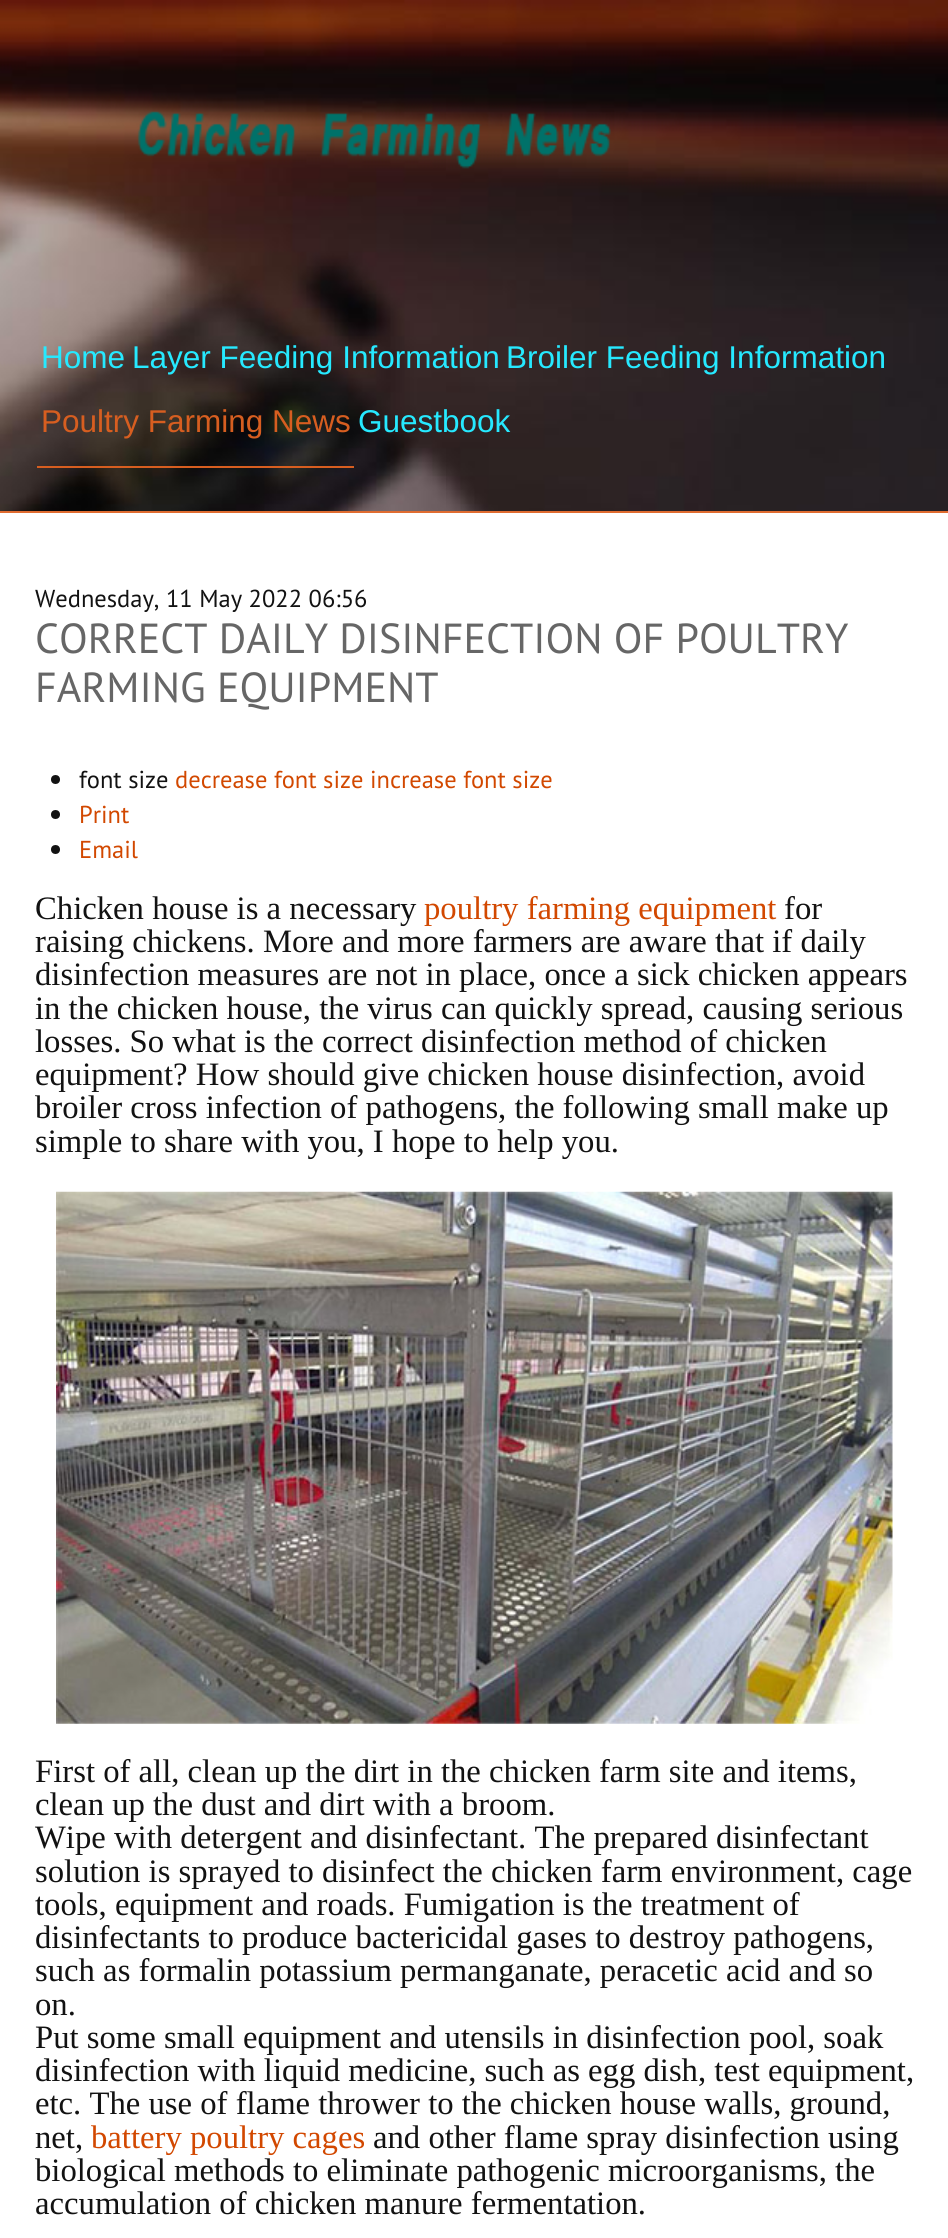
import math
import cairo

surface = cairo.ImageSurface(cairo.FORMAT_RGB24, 948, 2238)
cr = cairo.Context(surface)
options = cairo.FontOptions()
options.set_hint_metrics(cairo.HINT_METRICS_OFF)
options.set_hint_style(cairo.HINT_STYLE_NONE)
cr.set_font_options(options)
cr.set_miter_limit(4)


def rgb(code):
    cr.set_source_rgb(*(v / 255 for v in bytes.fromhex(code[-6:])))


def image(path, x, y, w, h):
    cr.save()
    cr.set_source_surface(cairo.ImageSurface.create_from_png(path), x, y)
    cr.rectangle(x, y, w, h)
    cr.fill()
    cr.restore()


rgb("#ffffff")
cr.paint()
image("img/1.png", 0, 0, 948, 511)
rgb("#e06c30")
cr.rectangle(0, 511, 948, 2)
cr.fill()
image("img/2.png", 137, 111, 474, 58)
rgb("#d75e20")
cr.rectangle(37, 466, 317, 2)
cr.fill()
rgb("#121212")
cr.arc(55.5, 779.5, 4.5, 0, 2 * math.pi)
cr.fill()
cr.arc(55.5, 814.5, 4.5, 0, 2 * math.pi)
cr.fill()
cr.arc(55.5, 849.5, 4.5, 0, 2 * math.pi)
cr.fill()
image("img/3.png", 56, 1191, 837, 533)
cr.select_font_face("Liberation Sans")
cr.set_font_size(31.5)
rgb("#26e9ff")
for x, y, s in [
    (41, 368, "Home"),
    (132, 368, "Layer Feeding Information"),
    (506, 368, "Broiler Feeding Information"),
]:
    cr.move_to(x, y)
    cr.show_text(s)
rgb("#d75e20")
cr.move_to(41, 432)
cr.show_text("Poultry Farming News")
rgb("#26e9ff")
cr.move_to(358, 432)
cr.show_text("Guestbook")
cr.select_font_face("PT Sans")
cr.set_font_size(24.5)
rgb("#121212")
cr.move_to(35, 607)
cr.show_text("Wednesday, 11 May 2022 06:56")
cr.set_font_size(42)
rgb("#666666")
cr.move_to(35, 653)
cr.show_text("CORRECT DAILY DISINFECTION OF POULTRY")
cr.move_to(35, 702)
cr.show_text("FARMING EQUIPMENT")
cr.set_font_size(24.5)
rgb("#121212")
cr.move_to(79, 788)
cr.show_text("font size")
rgb("#d24800")
for x, y, s in [
    (175, 788, "decrease font size increase font size"),
    (79, 823, "Print"),
    (79, 858, "Email"),
]:
    cr.move_to(x, y)
    cr.show_text(s)
cr.select_font_face("Liberation Serif")
cr.set_font_size(32.7)
rgb("#121212")
cr.move_to(35, 919)
cr.show_text("Chicken house is a necessary")
rgb("#d24800")
cr.move_to(424, 919)
cr.show_text("poultry farming equipment")
rgb("#121212")
for x, y, s in [
    (784, 919, "for"),
    (35, 952, "raising chickens. More and more farmers are aware that if daily"),
    (35, 985, "disinfection measures are not in place, once a sick chicken appears"),
    (35, 1019, "in the chicken house, the virus can quickly spread, causing serious"),
    (35, 1052, "losses. So what is the correct disinfection method of chicken"),
    (35, 1085, "equipment? How should give chicken house disinfection, avoid"),
    (35, 1118, "broiler cross infection of pathogens, the following small make up"),
    (35, 1152, "simple to share with you, I hope to help you."),
    (35, 1782, "First of all, clean up the dirt in the chicken farm site and items,"),
    (35, 1815, "clean up the dust and dirt with a broom."),
    (35, 1848, "Wipe with detergent and disinfectant. The prepared disinfectant"),
    (35, 1882, "solution is sprayed to disinfect the chicken farm environment, cage"),
    (35, 1915, "tools, equipment and roads. Fumigation is the treatment of"),
    (35, 1948, "disinfectants to produce bactericidal gases to destroy pathogens,"),
    (35, 1981, "such as formalin potassium permanganate, peracetic acid and so"),
    (35, 2015, "on."),
    (35, 2048, "Put some small equipment and utensils in disinfection pool, soak"),
    (35, 2081, "disinfection with liquid medicine, such as egg dish, test equipment,"),
    (35, 2114, "etc. The use of flame thrower to the chicken house walls, ground,"),
    (35, 2148, "net,"),
]:
    cr.move_to(x, y)
    cr.show_text(s)
rgb("#d24800")
cr.move_to(91, 2148)
cr.show_text("battery poultry cages")
rgb("#121212")
for x, y, s in [
    (373, 2148, "and other flame spray disinfection using"),
    (35, 2181, "biological methods to eliminate pathogenic microorganisms, the"),
    (35, 2214, "accumulation of chicken manure fermentation."),
]:
    cr.move_to(x, y)
    cr.show_text(s)
surface.write_to_png("page.png")
